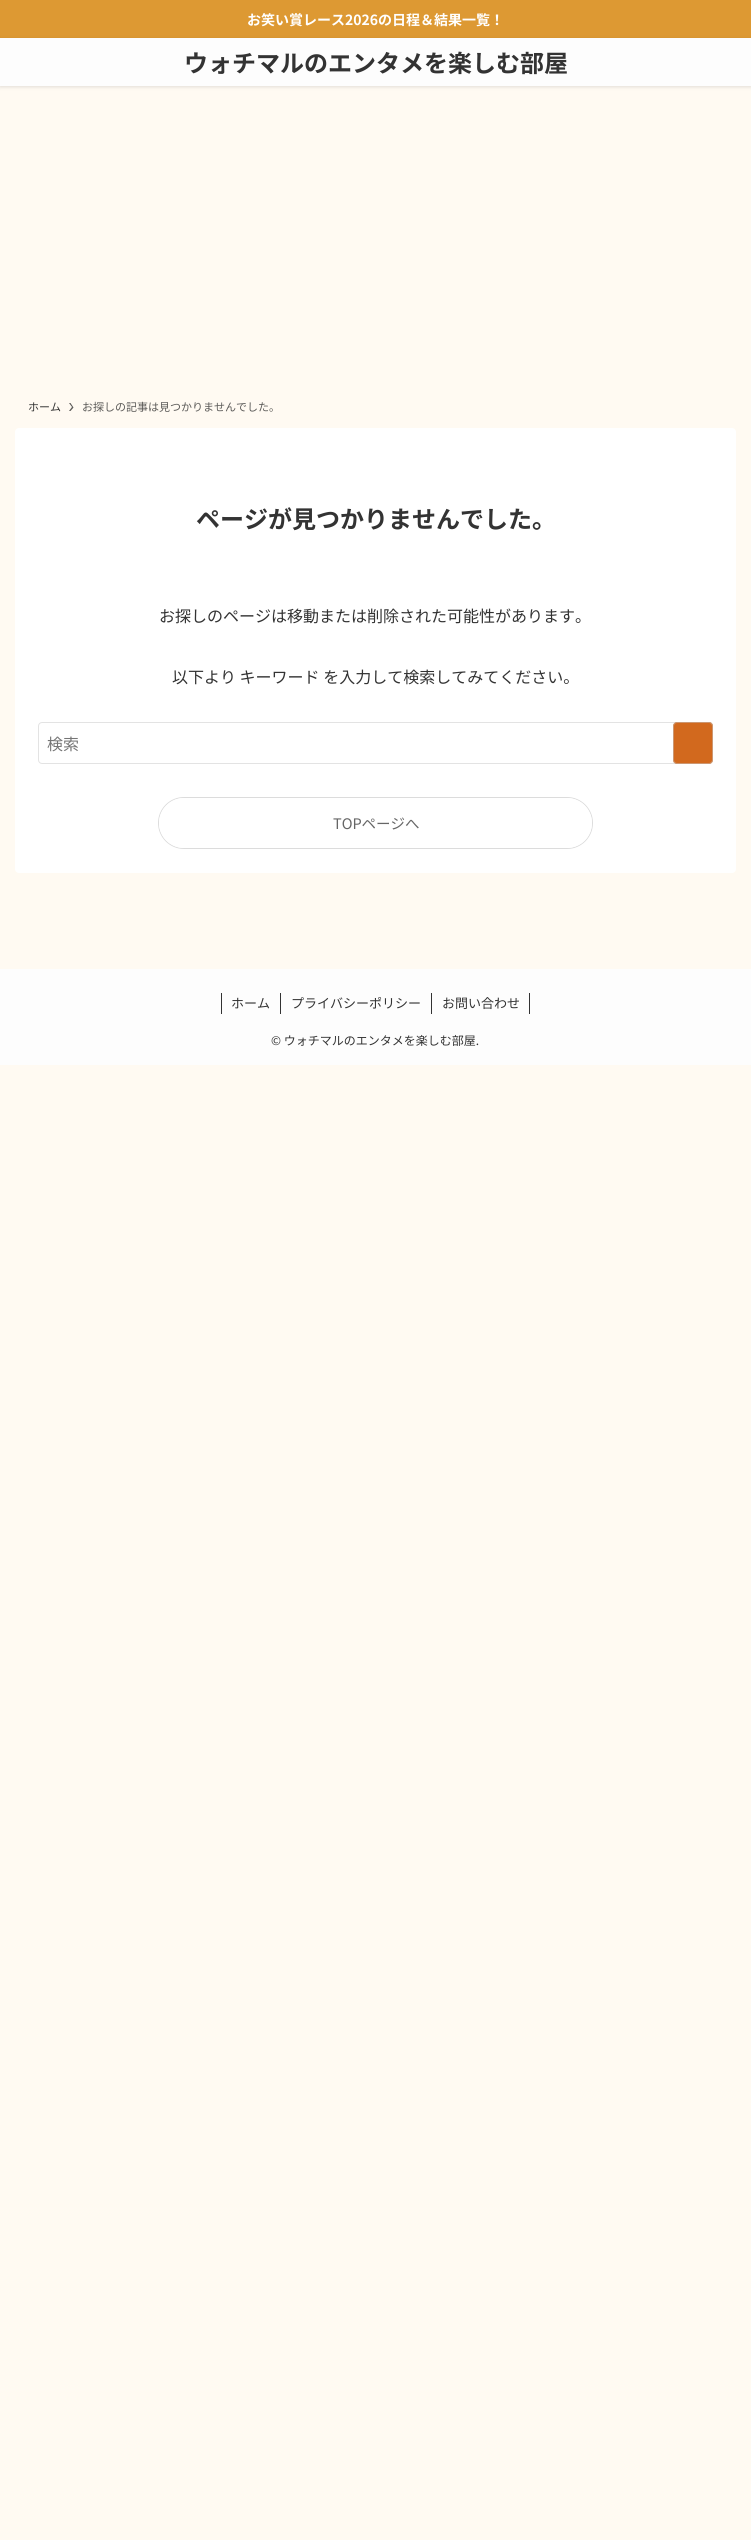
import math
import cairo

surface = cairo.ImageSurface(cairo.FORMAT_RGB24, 751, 2540)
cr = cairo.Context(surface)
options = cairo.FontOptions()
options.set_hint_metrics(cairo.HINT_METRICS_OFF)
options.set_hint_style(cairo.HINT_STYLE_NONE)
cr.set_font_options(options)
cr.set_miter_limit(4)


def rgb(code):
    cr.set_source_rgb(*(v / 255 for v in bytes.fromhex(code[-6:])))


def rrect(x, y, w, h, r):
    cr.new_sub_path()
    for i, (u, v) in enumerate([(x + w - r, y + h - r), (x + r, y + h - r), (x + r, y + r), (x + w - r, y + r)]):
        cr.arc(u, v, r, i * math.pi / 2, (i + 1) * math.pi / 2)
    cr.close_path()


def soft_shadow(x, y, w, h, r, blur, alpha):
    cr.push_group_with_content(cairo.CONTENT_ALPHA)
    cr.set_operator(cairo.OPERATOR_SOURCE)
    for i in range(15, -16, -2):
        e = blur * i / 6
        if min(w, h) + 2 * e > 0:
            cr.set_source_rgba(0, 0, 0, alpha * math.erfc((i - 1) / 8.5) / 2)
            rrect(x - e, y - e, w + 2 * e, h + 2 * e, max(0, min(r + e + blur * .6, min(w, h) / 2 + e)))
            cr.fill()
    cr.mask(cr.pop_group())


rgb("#fffaf2")
cr.paint()
rgb("#dd9933")
cr.rectangle(0, 0, 751, 38)
cr.fill()
rgb("#000000")
soft_shadow(0, 39, 751, 48, 0, 2, 0.12)
rgb("#fdfdfd")
cr.rectangle(0, 38, 751, 48)
cr.fill()
rgb("#5c5b59")
cr.new_path()
cr.move_to(70.5, 403)
cr.line_to(69, 403)
cr.line_to(72, 407)
cr.line_to(69, 411)
cr.line_to(70.5, 411)
cr.line_to(73.5, 407.5)
cr.close_path()
cr.fill()
rgb("#ffffff")
rrect(15, 428, 721, 445, 4)
cr.fill()
rrect(38.5, 722.5, 674, 41, 3.5)
rgb("#e3e3e3")
cr.set_line_width(1)
cr.stroke()
rgb("#d2691e")
rrect(673, 722, 40, 42, 4)
cr.fill()
rrect(673.5, 722.5, 39, 41, 3.5)
cr.set_source_rgba(0.78, 0.78, 0.78, 0.5)
cr.stroke()
rrect(158.5, 797.5, 434, 51, 25.5)
rgb("#dcdcdc")
cr.stroke()
rgb("#ffffff")
rrect(159, 798, 433, 50, 25)
cr.fill()
for x, y, w, h, color in [
    (0, 969, 751, 96, "#fdfdfd"),
    (280, 993, 1, 21, "#333333"),
    (221, 993, 1, 21, "#333333"),
    (431, 993, 1, 21, "#333333"),
    (529, 993, 1, 21, "#333333"),
]:
    rgb(color)
    cr.rectangle(x, y, w, h)
    cr.fill()
cr.select_font_face("Noto Sans JP", cairo.FONT_SLANT_NORMAL, cairo.FONT_WEIGHT_BOLD)
cr.set_font_size(14)
rgb("#ffffff")
cr.move_to(247, 25)
cr.show_text("お笑い賞レース2026の日程＆結果一覧！")
cr.set_font_size(24)
rgb("#333333")
cr.move_to(184, 72)
cr.show_text("ウォチマルのエンタメを楽しむ部屋")
cr.select_font_face("Noto Sans JP")
cr.set_font_size(11)
cr.move_to(28, 411)
cr.show_text("ホーム")
rgb("#5c5b59")
cr.move_to(82, 411)
cr.show_text("お探しの記事は見つかりませんでした。")
cr.select_font_face("Noto Sans JP", cairo.FONT_SLANT_NORMAL, cairo.FONT_WEIGHT_BOLD)
cr.set_font_size(24)
rgb("#333333")
cr.move_to(196, 528)
cr.show_text("ページが見つかりませんでした。")
cr.select_font_face("Noto Sans JP")
cr.set_font_size(16)
cr.move_to(159, 622)
cr.show_text("お探しのページは移動または削除された可能性があります。")
cr.move_to(172, 683)
cr.show_text("以下より キーワード を入力して検索してみてください。")
rgb("#757575")
cr.move_to(47, 750)
cr.show_text("検索")
cr.set_font_size(14.5)
rgb("#666666")
cr.move_to(333, 829)
cr.show_text("TOPページへ")
cr.set_font_size(13)
rgb("#333333")
for x, y, s in [
    (231, 1008, "ホーム"),
    (291, 1008, "プライバシーポリシー"),
    (442, 1008, "お問い合わせ"),
]:
    cr.move_to(x, y)
    cr.show_text(s)
cr.set_font_size(12)
cr.move_to(271, 1045)
cr.show_text("© ウォチマルのエンタメを楽しむ部屋.")
surface.write_to_png("page.png")
